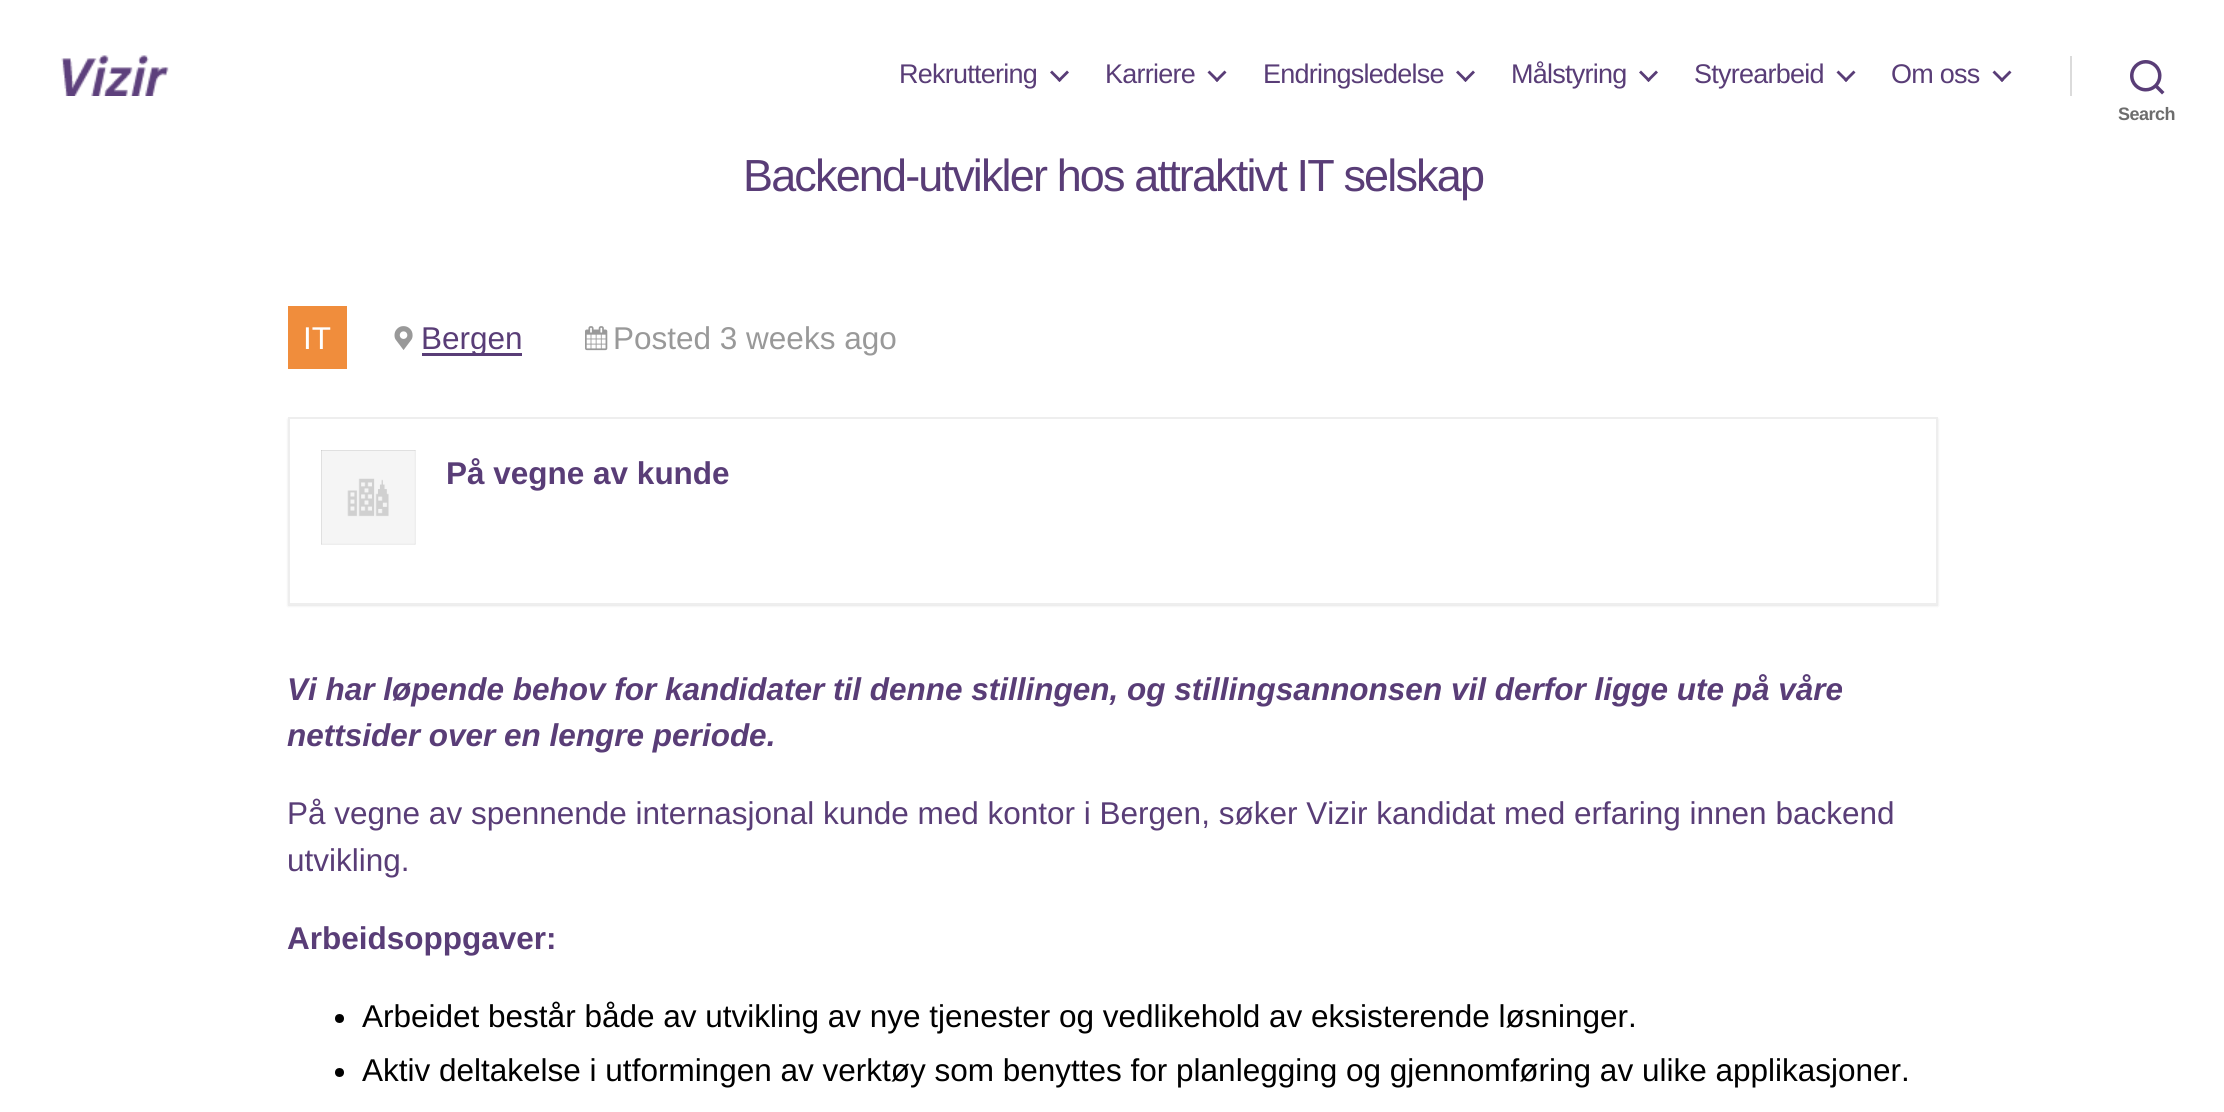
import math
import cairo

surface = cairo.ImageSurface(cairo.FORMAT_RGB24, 2224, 1112)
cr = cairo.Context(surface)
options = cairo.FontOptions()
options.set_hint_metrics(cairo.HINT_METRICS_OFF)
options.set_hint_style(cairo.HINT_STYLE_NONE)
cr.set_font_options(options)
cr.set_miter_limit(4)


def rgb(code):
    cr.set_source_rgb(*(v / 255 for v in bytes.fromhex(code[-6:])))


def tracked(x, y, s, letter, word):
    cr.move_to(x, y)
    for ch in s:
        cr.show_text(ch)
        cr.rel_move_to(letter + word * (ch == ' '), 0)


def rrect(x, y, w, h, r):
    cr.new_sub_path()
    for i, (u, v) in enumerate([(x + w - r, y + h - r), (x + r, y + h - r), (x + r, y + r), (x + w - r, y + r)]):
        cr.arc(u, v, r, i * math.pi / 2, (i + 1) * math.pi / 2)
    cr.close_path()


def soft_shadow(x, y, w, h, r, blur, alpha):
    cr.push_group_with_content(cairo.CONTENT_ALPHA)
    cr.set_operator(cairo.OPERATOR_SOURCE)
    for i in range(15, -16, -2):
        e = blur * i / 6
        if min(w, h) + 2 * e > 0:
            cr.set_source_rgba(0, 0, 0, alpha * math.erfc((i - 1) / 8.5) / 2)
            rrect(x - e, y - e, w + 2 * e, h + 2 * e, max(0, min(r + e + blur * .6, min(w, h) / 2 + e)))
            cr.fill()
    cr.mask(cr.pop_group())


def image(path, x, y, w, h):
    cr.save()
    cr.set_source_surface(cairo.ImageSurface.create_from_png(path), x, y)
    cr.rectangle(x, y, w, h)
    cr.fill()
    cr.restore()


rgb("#ffffff")
cr.paint()
image("img/1.png", 61, 55, 108, 41)
rgb("#593d77")
cr.new_path()
cr.move_to(1050, 72.5)
cr.line_to(1052, 70.5)
cr.line_to(1061.5, 80)
cr.line_to(1059.5, 82)
cr.close_path()
cr.fill()
cr.new_path()
cr.move_to(1057.5, 80)
cr.line_to(1067, 70.5)
cr.line_to(1069, 72.5)
cr.line_to(1059.5, 82)
cr.close_path()
cr.fill()
cr.new_path()
cr.move_to(1207.5, 72.5)
cr.line_to(1209.5, 70.5)
cr.line_to(1219, 80)
cr.line_to(1217, 82)
cr.close_path()
cr.fill()
cr.new_path()
cr.move_to(1215, 80)
cr.line_to(1224.5, 70.5)
cr.line_to(1226.5, 72.5)
cr.line_to(1217, 82)
cr.close_path()
cr.fill()
cr.new_path()
cr.move_to(1456, 72.5)
cr.line_to(1458, 70.5)
cr.line_to(1467.5, 80)
cr.line_to(1465.5, 82)
cr.close_path()
cr.fill()
cr.new_path()
cr.move_to(1463.5, 80)
cr.line_to(1473, 70.5)
cr.line_to(1475, 72.5)
cr.line_to(1465.5, 82)
cr.close_path()
cr.fill()
cr.new_path()
cr.move_to(1639, 72.5)
cr.line_to(1641, 70.5)
cr.line_to(1650.5, 80)
cr.line_to(1648.5, 82)
cr.close_path()
cr.fill()
cr.new_path()
cr.move_to(1646.5, 80)
cr.line_to(1656, 70.5)
cr.line_to(1658, 72.5)
cr.line_to(1648.5, 82)
cr.close_path()
cr.fill()
cr.new_path()
cr.move_to(1836.5, 72.5)
cr.line_to(1838.5, 70.5)
cr.line_to(1848, 80)
cr.line_to(1846, 82)
cr.close_path()
cr.fill()
cr.new_path()
cr.move_to(1844, 80)
cr.line_to(1853.5, 70.5)
cr.line_to(1855.5, 72.5)
cr.line_to(1846, 82)
cr.close_path()
cr.fill()
cr.new_path()
cr.move_to(1992.5, 72.5)
cr.line_to(1994.5, 70.5)
cr.line_to(2004, 80)
cr.line_to(2002, 82)
cr.close_path()
cr.fill()
cr.new_path()
cr.move_to(2000, 80)
cr.line_to(2009.5, 70.5)
cr.line_to(2011.5, 72.5)
cr.line_to(2002, 82)
cr.close_path()
cr.fill()
rgb("#dbdbdb")
cr.rectangle(2070, 56, 2, 40)
cr.fill()
image("img/2.png", 2130, 60, 35, 35)
rgb("#f08d3c")
cr.rectangle(288, 306, 59, 63)
cr.fill()
image("img/3.png", 394, 326, 19, 24)
rgb("#593d77")
cr.rectangle(422, 353, 100, 3)
cr.fill()
image("img/4.png", 585, 326, 23, 25)
cr.save()
cr.set_fill_rule(cairo.FILL_RULE_EVEN_ODD)
cr.new_path()
cr.move_to(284, 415)
cr.line_to(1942, 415)
cr.line_to(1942, 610)
cr.line_to(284, 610)
cr.close_path()
cr.move_to(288, 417)
cr.line_to(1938, 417)
cr.line_to(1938, 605)
cr.line_to(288, 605)
cr.close_path()
cr.clip()
rgb("#000000")
soft_shadow(288, 419, 1650, 187, 0, 1, 0.1)
cr.restore()
cr.rectangle(289, 418, 1648, 186)
rgb("#eeeeee")
cr.stroke()
image("img/5.png", 321, 450, 95, 95)
rgb("#000000")
cr.arc(339.5, 1018.5, 4.5, 0, 2 * math.pi)
cr.fill()
cr.arc(339.5, 1072.5, 4.5, 0, 2 * math.pi)
cr.fill()
cr.select_font_face("Liberation Sans")
cr.set_font_size(27)
rgb("#593d77")
for x, y, s in [
    (899, 83, "Rekruttering"),
    (1105, 83, "Karriere"),
    (1263, 83, "Endringsledelse"),
    (1511, 83, "Målstyring"),
    (1694, 83, "Styrearbeid"),
    (1891, 83, "Om oss"),
]:
    tracked(x, y, s, -0.75, 0)
cr.select_font_face("Liberation Sans", cairo.FONT_SLANT_NORMAL, cairo.FONT_WEIGHT_BOLD)
cr.set_font_size(18)
rgb("#6d6d6d")
tracked(2118, 120, "Search", -0.5, 0)
cr.select_font_face("Liberation Sans")
cr.set_font_size(45)
rgb("#593d77")
tracked(743, 191, "Backend-utvikler hos attraktivt IT selskap", -1.85, 0)
cr.set_font_size(31.5)
rgb("#ffffff")
cr.move_to(303, 349)
cr.show_text("IT")
rgb("#593d77")
cr.move_to(421, 349)
cr.show_text("Bergen")
rgb("#999999")
cr.move_to(613, 349)
cr.show_text("Posted 3 weeks ago")
cr.select_font_face("Liberation Sans", cairo.FONT_SLANT_NORMAL, cairo.FONT_WEIGHT_BOLD)
rgb("#593d77")
cr.move_to(446, 484)
cr.show_text("På vegne av kunde")
cr.select_font_face("Liberation Sans", cairo.FONT_SLANT_ITALIC, cairo.FONT_WEIGHT_BOLD)
cr.move_to(287, 700)
cr.show_text("Vi har løpende behov for kandidater til denne stillingen, og stillingsannonsen vil derfor ligge ute på våre")
cr.move_to(287, 746)
cr.show_text("nettsider over en lengre periode.")
cr.select_font_face("Liberation Sans")
cr.move_to(287, 824)
cr.show_text("På vegne av spennende internasjonal kunde med kontor i Bergen, søker Vizir kandidat med erfaring innen backend")
cr.move_to(287, 871)
cr.show_text("utvikling.")
cr.select_font_face("Liberation Sans", cairo.FONT_SLANT_NORMAL, cairo.FONT_WEIGHT_BOLD)
cr.move_to(287, 949)
cr.show_text("Arbeidsoppgaver:")
cr.select_font_face("Liberation Sans")
rgb("#000000")
cr.move_to(362, 1027)
cr.show_text("Arbeidet består både av utvikling av nye tjenester og vedlikehold av eksisterende løsninger.")
cr.move_to(362, 1081)
cr.show_text("Aktiv deltakelse i utformingen av verktøy som benyttes for planlegging og gjennomføring av ulike applikasjoner.")
surface.write_to_png("page.png")
